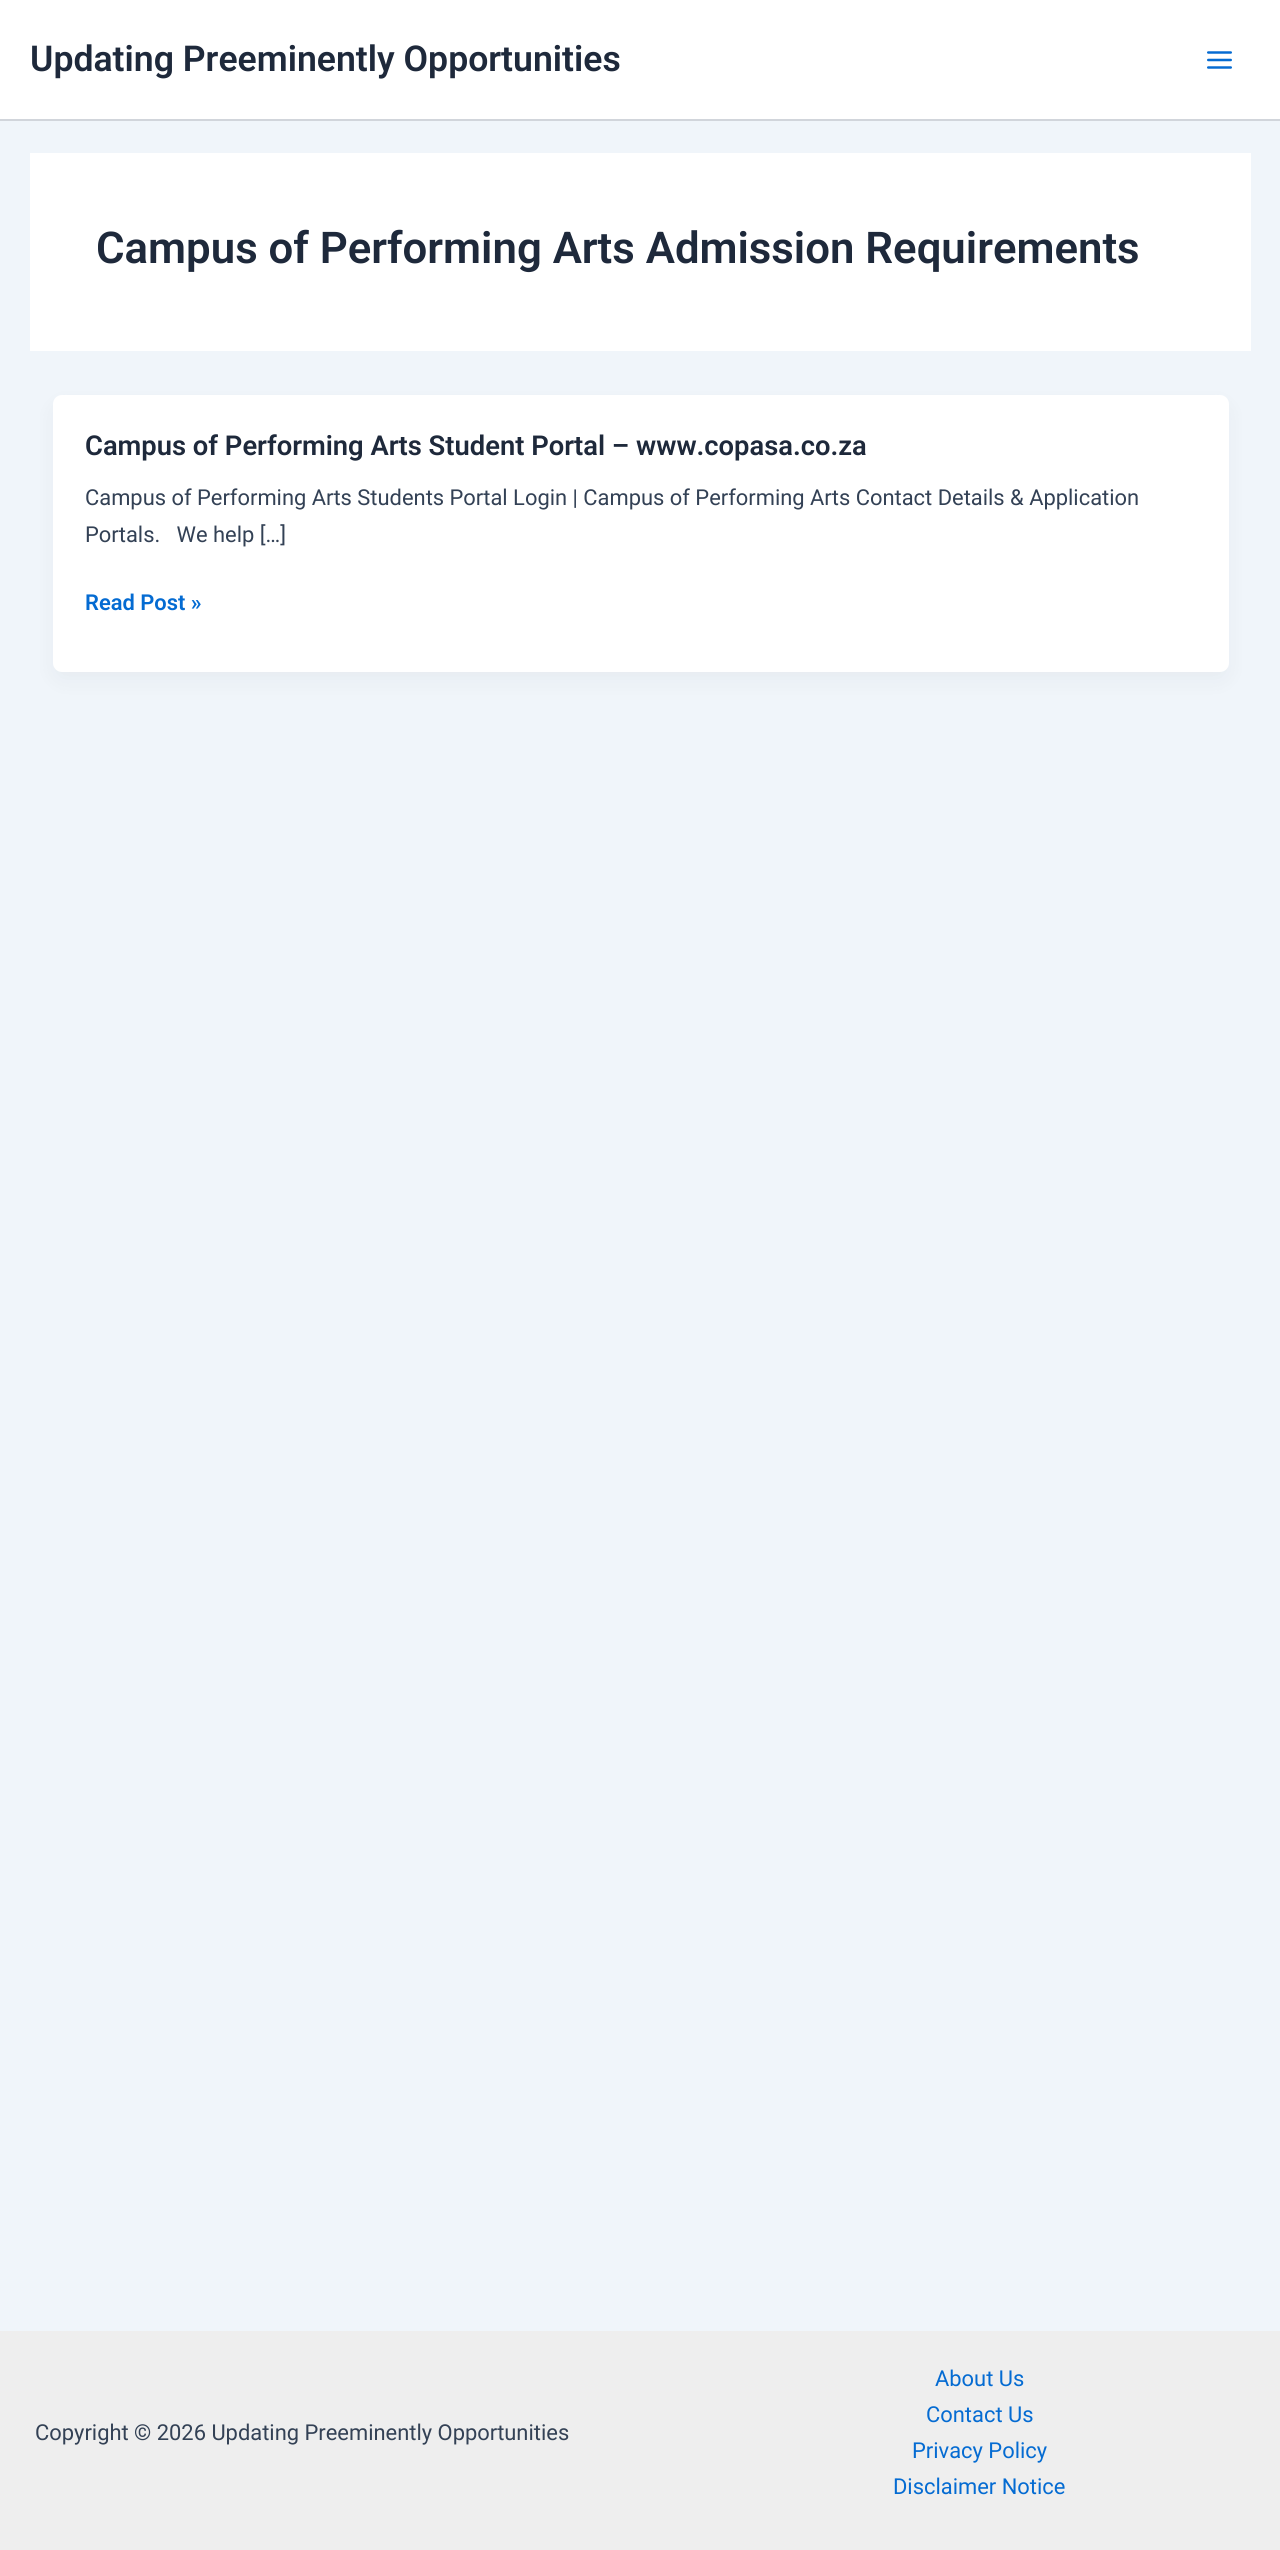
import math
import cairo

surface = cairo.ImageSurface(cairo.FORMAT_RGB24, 1280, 2550)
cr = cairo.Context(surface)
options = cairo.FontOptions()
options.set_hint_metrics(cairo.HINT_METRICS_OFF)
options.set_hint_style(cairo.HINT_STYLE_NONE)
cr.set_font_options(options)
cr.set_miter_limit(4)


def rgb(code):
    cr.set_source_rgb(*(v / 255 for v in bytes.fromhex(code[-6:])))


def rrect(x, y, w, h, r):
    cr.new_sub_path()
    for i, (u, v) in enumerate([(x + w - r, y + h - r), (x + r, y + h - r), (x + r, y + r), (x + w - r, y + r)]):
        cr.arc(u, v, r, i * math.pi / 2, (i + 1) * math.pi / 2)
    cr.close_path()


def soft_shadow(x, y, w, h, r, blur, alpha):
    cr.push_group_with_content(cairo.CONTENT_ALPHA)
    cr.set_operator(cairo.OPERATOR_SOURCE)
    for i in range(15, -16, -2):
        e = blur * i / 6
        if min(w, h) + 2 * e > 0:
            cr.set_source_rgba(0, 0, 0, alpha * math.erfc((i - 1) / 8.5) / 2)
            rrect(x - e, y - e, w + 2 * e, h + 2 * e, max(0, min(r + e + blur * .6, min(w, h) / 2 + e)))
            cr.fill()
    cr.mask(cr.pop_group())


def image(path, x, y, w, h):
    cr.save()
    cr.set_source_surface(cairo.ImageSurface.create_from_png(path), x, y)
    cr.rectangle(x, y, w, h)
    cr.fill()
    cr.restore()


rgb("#f0f5fa")
cr.paint()
rgb("#ffffff")
cr.rectangle(0, 0, 1280, 119)
cr.fill()
rgb("#d1d5db")
cr.rectangle(0, 119, 1280, 2)
cr.fill()
image("img/1.png", 1207, 51, 25, 18)
rgb("#ffffff")
cr.rectangle(30, 153, 1221, 198)
cr.fill()
rgb("#101828")
soft_shadow(56, 407, 1170, 271, 6, 11, 0.05)
rgb("#ffffff")
rrect(53, 395, 1176, 277, 9)
cr.fill()
rgb("#eeeeee")
cr.rectangle(0, 2331, 1280, 219)
cr.fill()
cr.select_font_face("Roboto SemiBold")
cr.set_font_size(35.6)
rgb("#1e293b")
cr.move_to(30, 71)
cr.show_text("Updating Preeminently Opportunities")
cr.set_font_size(43.75)
cr.move_to(96, 263)
cr.show_text("Campus of Performing Arts Admission Requirements")
cr.set_font_size(27.35)
cr.move_to(85, 455)
cr.show_text("Campus of Performing Arts Student Portal – www.copasa.co.za")
cr.select_font_face("Roboto")
cr.set_font_size(21.9)
rgb("#334155")
cr.move_to(85, 505)
cr.show_text("Campus of Performing Arts Students Portal Login | Campus of Performing Arts Contact Details & Application")
cr.move_to(85, 542)
cr.show_text("Portals.   We help […]")
cr.select_font_face("Roboto SemiBold")
rgb("#046bd2")
cr.move_to(85, 610)
cr.show_text("Read Post »")
cr.select_font_face("Roboto")
rgb("#334155")
cr.move_to(35, 2440)
cr.show_text("Copyright © 2026 Updating Preeminently Opportunities")
rgb("#046bd2")
for x, y, s in [
    (935, 2386, "About Us"),
    (926, 2422, "Contact Us"),
    (912, 2458, "Privacy Policy"),
    (893, 2494, "Disclaimer Notice"),
]:
    cr.move_to(x, y)
    cr.show_text(s)
surface.write_to_png("page.png")
